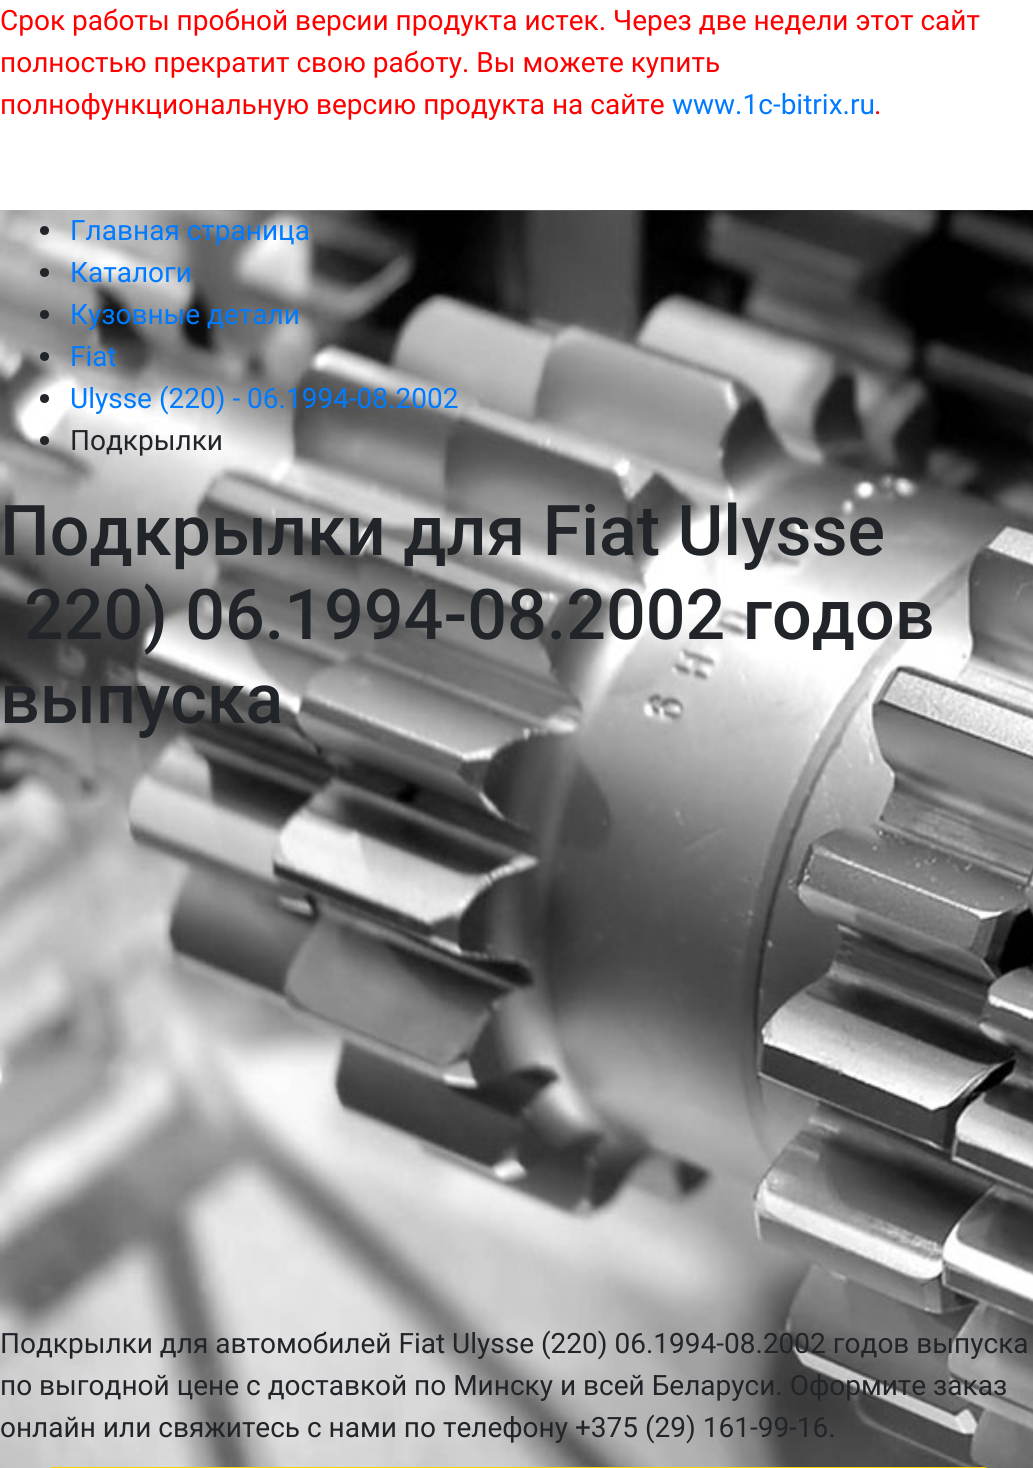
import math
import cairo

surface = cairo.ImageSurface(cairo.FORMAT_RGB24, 1033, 1468)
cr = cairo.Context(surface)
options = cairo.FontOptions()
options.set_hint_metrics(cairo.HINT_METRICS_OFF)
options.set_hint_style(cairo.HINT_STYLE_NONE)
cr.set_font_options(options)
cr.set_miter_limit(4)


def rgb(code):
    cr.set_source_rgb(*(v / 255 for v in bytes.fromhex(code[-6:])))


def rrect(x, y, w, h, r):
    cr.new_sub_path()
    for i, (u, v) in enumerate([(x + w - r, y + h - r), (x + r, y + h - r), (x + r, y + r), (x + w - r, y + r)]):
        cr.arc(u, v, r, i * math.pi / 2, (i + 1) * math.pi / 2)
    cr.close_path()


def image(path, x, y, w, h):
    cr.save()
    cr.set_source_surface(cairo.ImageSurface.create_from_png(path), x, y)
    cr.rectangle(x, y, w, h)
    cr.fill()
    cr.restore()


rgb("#ffffff")
cr.paint()
image("img/1.png", 0, 210, 1033, 1258)
rgb("#212529")
cr.arc(44.5, 230.5, 4.5, 0, 2 * math.pi)
cr.fill()
cr.arc(44.5, 272.5, 4.5, 0, 2 * math.pi)
cr.fill()
cr.arc(44.5, 314.5, 4.5, 0, 2 * math.pi)
cr.fill()
cr.arc(44.5, 356.5, 4.5, 0, 2 * math.pi)
cr.fill()
cr.arc(44.5, 398.5, 4.5, 0, 2 * math.pi)
cr.fill()
cr.arc(44.5, 440.5, 4.5, 0, 2 * math.pi)
cr.fill()
rrect(47, 1468, 943, 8, 6)
rgb("#ffcc00")
cr.stroke()
cr.select_font_face("Roboto")
cr.set_font_size(28)
rgb("#ff0000")
for x, y, s in [
    (0, 30, "Срок работы пробной версии продукта истек. Через две недели этот сайт"),
    (0, 72, "полностью прекратит свою работу. Вы можете купить"),
    (0, 114, "полнофункциональную версию продукта на сайте"),
]:
    cr.move_to(x, y)
    cr.show_text(s)
rgb("#007bff")
cr.move_to(672, 114)
cr.show_text("www.1c-bitrix.ru")
rgb("#ff0000")
cr.move_to(874, 114)
cr.show_text(".")
rgb("#007bff")
for x, y, s in [
    (70, 240, "Главная страница"),
    (70, 282, "Каталоги"),
    (70, 324, "Кузовные детали"),
    (70, 366, "Fiat"),
    (70, 408, "Ulysse (220) - 06.1994-08.2002"),
]:
    cr.move_to(x, y)
    cr.show_text(s)
rgb("#212529")
cr.move_to(70, 450)
cr.show_text("Подкрылки")
cr.select_font_face("Roboto Medium")
cr.set_font_size(70)
for x, y, s in [
    (0, 555, "Подкрылки для Fiat Ulysse"),
    (24, 639, "220) 06.1994-08.2002 годов"),
    (0, 723, "выпуска"),
]:
    cr.move_to(x, y)
    cr.show_text(s)
cr.select_font_face("Roboto")
cr.set_font_size(28)
for x, y, s in [
    (0, 1353, "Подкрылки для автомобилей Fiat Ulysse (220) 06.1994-08.2002 годов выпуска"),
    (0, 1395, "по выгодной цене с доставкой по Минску и всей Беларуси. Оформите заказ"),
    (0, 1437, "онлайн или свяжитесь с нами по телефону +375 (29) 161-99-16."),
]:
    cr.move_to(x, y)
    cr.show_text(s)
surface.write_to_png("page.png")
